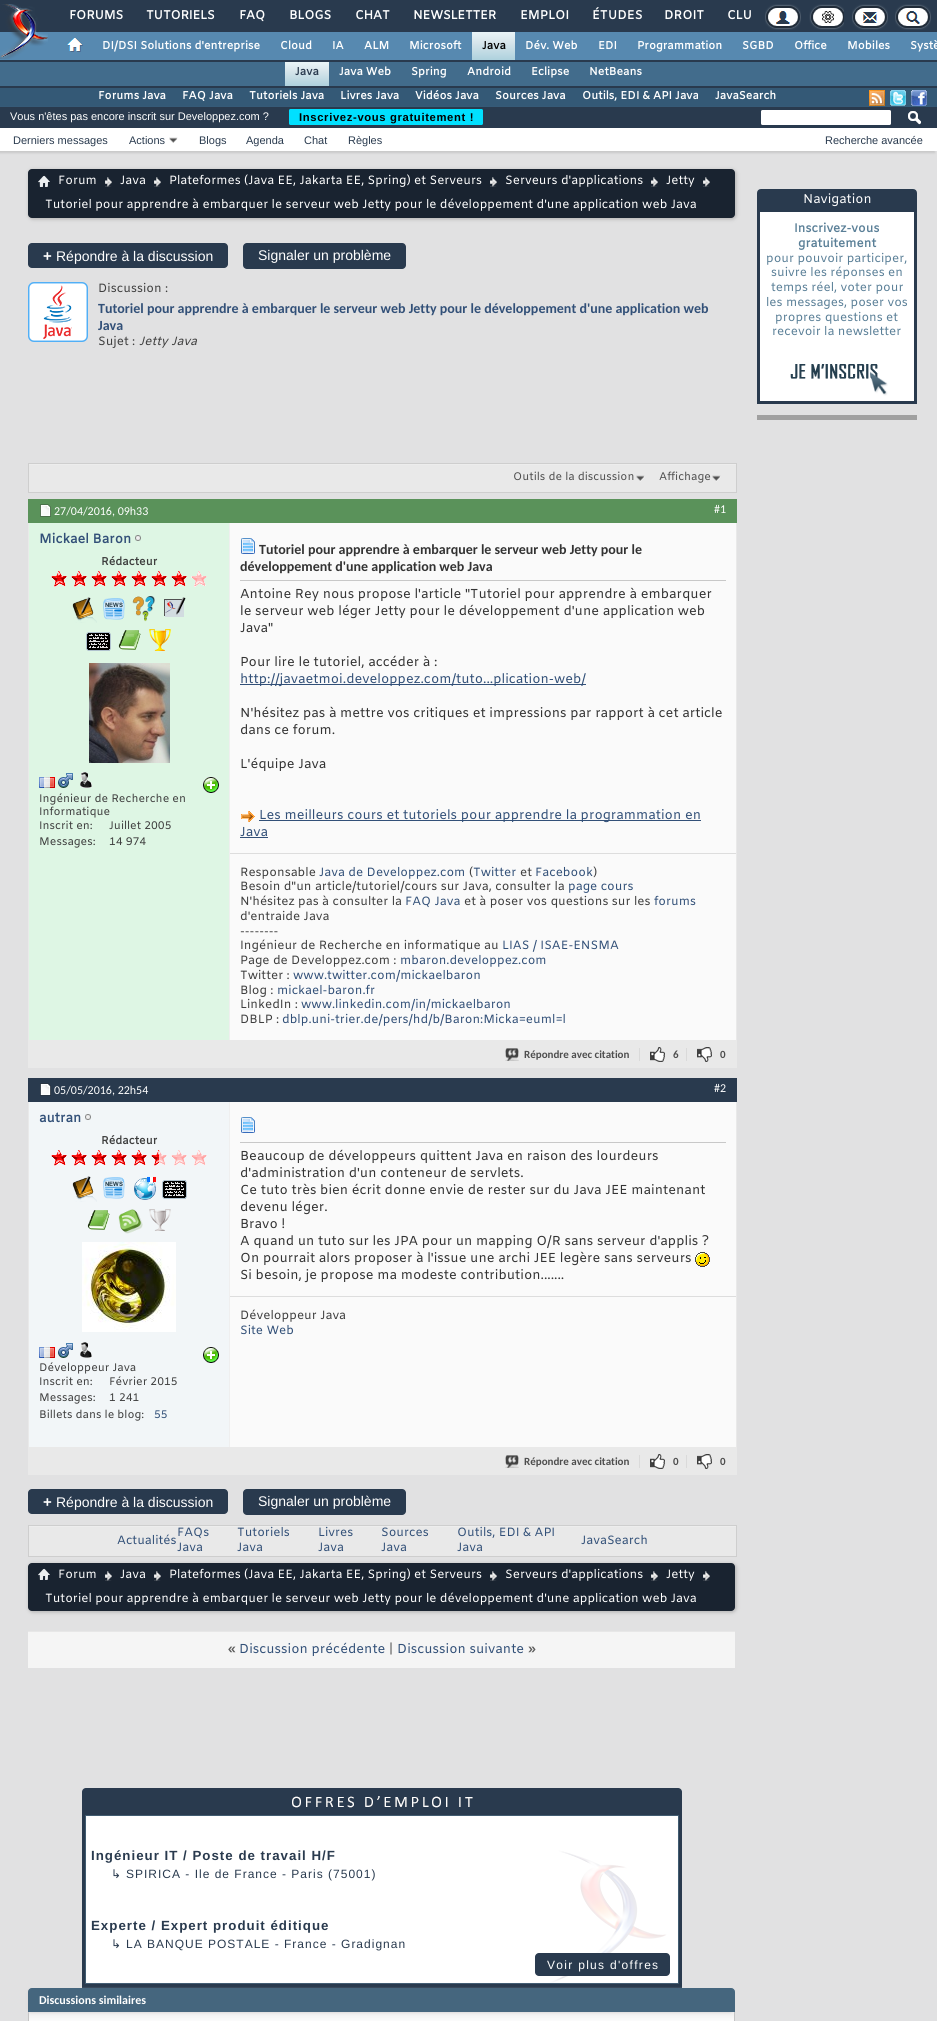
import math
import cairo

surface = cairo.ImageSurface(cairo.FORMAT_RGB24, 937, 2021)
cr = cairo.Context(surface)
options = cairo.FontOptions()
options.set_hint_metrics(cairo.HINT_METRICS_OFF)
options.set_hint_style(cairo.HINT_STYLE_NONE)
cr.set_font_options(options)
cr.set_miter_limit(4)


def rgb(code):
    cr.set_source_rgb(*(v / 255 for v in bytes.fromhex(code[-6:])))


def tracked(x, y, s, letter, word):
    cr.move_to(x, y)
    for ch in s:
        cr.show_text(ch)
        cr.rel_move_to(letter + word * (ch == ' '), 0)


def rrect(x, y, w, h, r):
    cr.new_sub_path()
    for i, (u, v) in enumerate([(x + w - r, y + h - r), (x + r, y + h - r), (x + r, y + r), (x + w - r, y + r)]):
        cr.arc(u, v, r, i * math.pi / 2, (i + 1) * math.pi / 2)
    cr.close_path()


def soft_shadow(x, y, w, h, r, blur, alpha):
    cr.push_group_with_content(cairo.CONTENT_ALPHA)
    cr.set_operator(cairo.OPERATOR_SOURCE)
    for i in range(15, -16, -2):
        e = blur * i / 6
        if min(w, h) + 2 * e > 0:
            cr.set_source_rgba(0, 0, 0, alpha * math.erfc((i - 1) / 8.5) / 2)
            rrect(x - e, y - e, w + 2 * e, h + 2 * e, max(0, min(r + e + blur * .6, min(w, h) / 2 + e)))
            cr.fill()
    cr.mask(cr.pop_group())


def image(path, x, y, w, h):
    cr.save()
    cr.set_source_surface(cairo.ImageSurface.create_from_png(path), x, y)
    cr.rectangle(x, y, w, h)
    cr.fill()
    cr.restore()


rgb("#293a4e")
cr.paint()
rgb("#5789b0")
cr.rectangle(0, 32, 937, 28)
cr.fill()
image("img/1.png", 0, 4, 48, 55)
image("img/2.png", 765, 4, 36, 26)
image("img/3.png", 809, 4, 35, 26)
image("img/4.png", 852, 4, 36, 26)
image("img/5.png", 895, 4, 36, 26)
image("img/6.png", 67, 38, 16, 14)
gradient = cairo.LinearGradient(494, 32, 494, 60)
gradient.add_color_stop_rgba(0, 0.918, 0.961, 0.973, 1)
gradient.add_color_stop_rgba(0.37, 0.847, 0.902, 0.925, 1)
gradient.add_color_stop_rgba(1, 0.682, 0.82, 0.867, 1)
cr.set_source(gradient)
cr.rectangle(472, 32, 43, 28)
cr.fill()
rgb("#426c8c")
cr.rectangle(0, 62, 937, 24)
cr.fill()
gradient = cairo.LinearGradient(307, 62, 307, 86)
gradient.add_color_stop_rgba(0, 0.918, 0.961, 0.973, 1)
gradient.add_color_stop_rgba(0.37, 0.847, 0.902, 0.925, 1)
gradient.add_color_stop_rgba(1, 0.682, 0.82, 0.867, 1)
cr.set_source(gradient)
cr.rectangle(285, 62, 44, 24)
cr.fill()
rgb("#345976")
cr.rectangle(0, 88, 937, 19)
cr.fill()
image("img/7.png", 869, 90, 16, 16)
image("img/8.png", 890, 90, 16, 16)
image("img/9.png", 911, 90, 16, 16)
rgb("#e1e1e2")
cr.rectangle(0, 151, 937, 1870)
cr.fill()
rgb("#c8c8c8")
soft_shadow(-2, 109, 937, 44, 0, 1, 1)
rgb("#ffffff")
cr.rectangle(0, 128, 937, 23)
cr.fill()
rgb("#293a4e")
cr.rectangle(0, 107, 937, 21)
cr.fill()
rgb("#00e0ff")
rrect(289, 109, 194, 16, 1.5)
cr.fill()
image("img/10.png", 169, 137, 9, 6)
rgb("#ffffff")
rrect(761, 110, 130, 15, 1.5)
cr.fill()
image("img/11.png", 908, 111, 13, 14)
rgb("#adadad")
soft_shadow(29, 170, 707, 49, 4, 2, 1)
rgb("#192330")
rrect(28, 169, 707, 49, 4)
cr.fill()
image("img/12.png", 38, 175, 12, 12)
image("img/13.png", 105, 177, 7, 10)
image("img/13.png", 154, 177, 7, 10)
image("img/13.png", 490, 177, 7, 10)
image("img/13.png", 651, 177, 7, 10)
image("img/13.png", 703, 177, 7, 10)
rgb("#293a4e")
rrect(28, 243, 200, 25, 4)
cr.fill()
rrect(243, 243, 163, 26, 4)
cr.fill()
image("img/14.png", 28, 282, 60, 60)
rgb("#e9e9e9")
cr.rectangle(29, 465, 707, 27)
cr.fill()
rgb("#ededed")
cr.rectangle(28, 464, 709, 1)
cr.fill()
cr.rectangle(28.5, 463.5, 708, 29)
rgb("#cecece")
cr.set_line_width(1)
cr.stroke()
image("img/15.png", 636, 475, 9, 7)
image("img/15.png", 712, 475, 9, 7)
cr.rectangle(28.5, 499.5, 708, 568)
rgb("#e9e9e9")
cr.stroke()
rgb("#5a925a")
cr.rectangle(28, 499, 709, 24)
cr.fill()
image("img/16.png", 40, 504, 11, 13)
rgb("#def6e4")
cr.rectangle(29, 523, 200, 517)
cr.fill()
image("img/17.png", 135, 535, 6, 6)
image("img/18.png", 51, 571, 16, 16)
image("img/18.png", 71, 571, 16, 16)
image("img/18.png", 91, 571, 16, 16)
image("img/18.png", 111, 571, 16, 16)
image("img/18.png", 131, 571, 16, 16)
image("img/18.png", 151, 571, 16, 16)
image("img/18.png", 171, 571, 16, 16)
image("img/19.png", 191, 571, 16, 16)
image("img/20.png", 72, 597, 25, 26)
image("img/21.png", 103, 598, 22, 22)
image("img/22.png", 132, 596, 23, 26)
image("img/23.png", 164, 597, 22, 20)
image("img/24.png", 86, 632, 25, 19)
image("img/25.png", 118, 630, 23, 20)
image("img/26.png", 149, 629, 22, 22)
image("img/27.png", 89, 663, 81, 100)
image("img/28.png", 203, 777, 16, 16)
image("img/29.png", 39, 777, 16, 11)
image("img/30.png", 58, 773, 15, 15)
image("img/31.png", 80, 772, 12, 16)
for x, y, w, h, color in [
    (230, 523, 506, 517, "#fafafa"),
    (229, 523, 1, 517, "#efefef"),
    (240, 580, 486, 1, "#c8c8c8"),
]:
    rgb(color)
    cr.rectangle(x, y, w, h)
    cr.fill()
image("img/32.png", 241, 538, 14, 16)
rgb("#325078")
cr.rectangle(240, 684, 346, 1)
cr.fill()
image("img/33.png", 241, 811, 14, 11)
for x, y, w, h, color in [
    (259, 820, 442, 1, "#325078"),
    (240, 837, 28, 1, "#325078"),
    (230, 853, 506, 1, "#dddddd"),
    (29, 1040, 707, 27, "#e9e9e9"),
]:
    rgb(color)
    cr.rectangle(x, y, w, h)
    cr.fill()
image("img/34.png", 505, 1048, 14, 13)
rgb("#dadada")
cr.rectangle(639, 1048, 1, 13)
cr.fill()
image("img/35.png", 650, 1047, 15, 15)
cr.rectangle(686, 1048, 1, 13)
cr.fill()
image("img/36.png", 697, 1047, 15, 15)
cr.rectangle(28.5, 1078.5, 708, 396)
rgb("#e9e9e9")
cr.stroke()
rgb("#293a4e")
cr.rectangle(28, 1078, 709, 24)
cr.fill()
image("img/37.png", 40, 1083, 11, 13)
rgb("#f2f6f8")
cr.rectangle(29, 1102, 200, 345)
cr.fill()
image("img/38.png", 85, 1114, 6, 6)
image("img/39.png", 51, 1150, 16, 16)
image("img/39.png", 71, 1150, 16, 16)
image("img/39.png", 91, 1150, 16, 16)
image("img/39.png", 111, 1150, 16, 16)
image("img/39.png", 131, 1150, 16, 16)
image("img/40.png", 151, 1150, 16, 16)
image("img/41.png", 171, 1150, 16, 16)
image("img/41.png", 191, 1150, 16, 16)
image("img/42.png", 72, 1176, 25, 26)
image("img/43.png", 103, 1177, 22, 22)
image("img/44.png", 134, 1176, 22, 24)
image("img/45.png", 162, 1180, 25, 19)
image("img/46.png", 87, 1210, 23, 20)
image("img/47.png", 118, 1209, 25, 25)
image("img/48.png", 149, 1209, 22, 22)
image("img/49.png", 82, 1242, 94, 90)
image("img/50.png", 203, 1347, 16, 16)
image("img/29.png", 39, 1347, 16, 11)
image("img/51.png", 58, 1343, 15, 15)
image("img/52.png", 80, 1342, 12, 16)
for x, y, w, h, color in [
    (230, 1102, 506, 345, "#fafafa"),
    (229, 1102, 1, 345, "#efefef"),
    (240, 1142, 486, 1, "#c8c8c8"),
]:
    rgb(color)
    cr.rectangle(x, y, w, h)
    cr.fill()
image("img/32.png", 241, 1117, 14, 16)
image("img/53.png", 695, 1252, 15, 15)
rgb("#dddddd")
cr.rectangle(230, 1296, 506, 1)
cr.fill()
rgb("#e9e9e9")
cr.rectangle(29, 1447, 707, 27)
cr.fill()
image("img/34.png", 505, 1455, 14, 13)
rgb("#dadada")
cr.rectangle(639, 1455, 1, 13)
cr.fill()
image("img/35.png", 650, 1454, 15, 15)
cr.rectangle(686, 1455, 1, 13)
cr.fill()
image("img/36.png", 697, 1454, 15, 15)
rgb("#293a4e")
rrect(28, 1489, 200, 25, 4)
cr.fill()
rrect(243, 1489, 163, 26, 4)
cr.fill()
rgb("#e9e9e9")
cr.rectangle(29, 1527, 707, 29)
cr.fill()
rgb("#ededed")
cr.rectangle(28, 1526, 709, 1)
cr.fill()
cr.rectangle(28.5, 1525.5, 708, 31)
rgb("#cecece")
cr.stroke()
rgb("#adadad")
soft_shadow(29, 1564, 707, 48, 4, 2, 1)
rgb("#192330")
rrect(28, 1563, 707, 48, 4)
cr.fill()
image("img/12.png", 38, 1568, 12, 12)
image("img/13.png", 105, 1571, 7, 10)
image("img/13.png", 154, 1571, 7, 10)
image("img/13.png", 490, 1571, 7, 10)
image("img/13.png", 651, 1571, 7, 10)
image("img/13.png", 703, 1571, 7, 10)
rgb("#f5f5f5")
cr.rectangle(28, 1632, 707, 36)
cr.fill()
rgb("#e7e7e7")
cr.rectangle(28, 1631, 707, 1)
cr.fill()
image("img/54.png", 82, 1788, 600, 200)
rgb("#293a4e")
rrect(535, 1953, 135, 23, 4)
cr.fill()
rgb("#ffffff")
cr.rectangle(29, 2012, 705, 9)
cr.fill()
image("img/55.png", 29, 2012, 705, 9)
rgb("#c4c4c4")
cr.rectangle(734, 2012, 1, 9)
cr.fill()
cr.rectangle(28, 2012, 1, 9)
cr.fill()
rgb("#dedbdb")
soft_shadow(27, 1989, 707, 24, 4, 1, 1)
rgb("#45667e")
cr.new_path()
cr.move_to(32, 1988.5)
cr.line_to(731, 1988.5)
cr.curve_to(733, 1988.5, 734.5, 1990, 734.5, 1992)
cr.line_to(734.5, 2011.5)
cr.line_to(28.5, 2011.5)
cr.line_to(28.5, 1992)
cr.curve_to(28.5, 1990, 30, 1988.5, 32, 1988.5)
cr.close_path()
cr.fill_preserve()
cr.stroke()
rgb("#293a4e")
cr.new_path()
cr.move_to(761, 190.5)
cr.line_to(913, 190.5)
cr.curve_to(914.5, 190.5, 915.5, 191.5, 915.5, 193)
cr.line_to(915.5, 402.5)
cr.line_to(758.5, 402.5)
cr.line_to(758.5, 193)
cr.curve_to(758.5, 191.5, 759.5, 190.5, 761, 190.5)
cr.close_path()
cr.fill_preserve()
cr.set_line_width(3)
cr.stroke()
rgb("#ffffff")
cr.rectangle(760, 212, 154, 189)
cr.fill()
image("img/56.png", 790, 364, 98, 32)
rgb("#a0a0a0")
cr.rectangle(757, 415, 160, 5)
cr.fill()
cr.select_font_face("Amiko", cairo.FONT_SLANT_NORMAL, cairo.FONT_WEIGHT_BOLD)
cr.set_font_size(12.25)
rgb("#ffffff")
for x, y, s in [
    (69, 19, "FORUMS"),
    (146, 19, "TUTORIELS"),
    (239, 19, "FAQ"),
    (289, 19, "BLOGS"),
    (355, 19, "CHAT"),
    (413, 19, "NEWSLETTER"),
]:
    tracked(x, y, s, -0.25, 0)
for x, y, s in [
    (520, 19, "EMPLOI"),
    (592, 19, "ÉTUDES"),
    (664, 19, "DROIT"),
]:
    cr.move_to(x, y)
    cr.show_text(s)
tracked(727, 19, "CLU", -0.25, 0)
cr.set_font_size(11)
for x, y, s in [
    (102, 49, "DI/DSI Solutions d'entreprise"),
    (280, 49, "Cloud"),
    (332, 49, "IA"),
    (364, 49, "ALM"),
    (409, 49, "Microsoft"),
]:
    cr.move_to(x, y)
    cr.show_text(s)
rgb("#000000")
cr.move_to(482, 49)
cr.show_text("Java")
rgb("#ffffff")
for x, y, s in [
    (525, 49, "Dév. Web"),
    (598, 49, "EDI"),
    (637, 49, "Programmation"),
    (742, 49, "SGBD"),
    (794, 49, "Office"),
    (847, 49, "Mobiles"),
    (910, 49, "Systè"),
]:
    cr.move_to(x, y)
    cr.show_text(s)
rgb("#293a4e")
cr.move_to(295, 75)
cr.show_text("Java")
rgb("#ffffff")
for x, y, s in [
    (339, 75, "Java Web"),
    (411, 75, "Spring"),
    (467, 75, "Android"),
    (531, 75, "Eclipse"),
    (589, 75, "NetBeans"),
    (98, 99, "Forums Java"),
    (182, 99, "FAQ Java"),
    (249, 99, "Tutoriels Java"),
    (340, 99, "Livres Java"),
    (415, 99, "Vidéos Java"),
    (495, 99, "Sources Java"),
    (582, 99, "Outils, EDI & API Java"),
    (715, 99, "JavaSearch"),
]:
    cr.move_to(x, y)
    cr.show_text(s)
cr.select_font_face("Liberation Sans")
cr.move_to(10, 120)
cr.show_text("Vous n'êtes pas encore inscrit sur Developpez.com ?")
cr.select_font_face("Liberation Sans", cairo.FONT_SLANT_NORMAL, cairo.FONT_WEIGHT_BOLD)
cr.set_font_size(11.25)
rgb("#000000")
tracked(299, 121, "Inscrivez-vous gratuitement !", 0.65, 0)
cr.select_font_face("Liberation Sans")
cr.set_font_size(11)
rgb("#293a4e")
for x, y, s in [
    (13, 144, "Derniers messages"),
    (129, 144, "Actions"),
    (199, 144, "Blogs"),
    (246, 144, "Agenda"),
    (304, 144, "Chat"),
    (348, 144, "Règles"),
    (825, 144, "Recherche avancée"),
]:
    cr.move_to(x, y)
    cr.show_text(s)
cr.select_font_face("Amiko")
cr.set_font_size(12)
rgb("#ffffff")
for x, y, s in [
    (58, 184, "Forum"),
    (120, 184, "Java"),
    (169, 184, "Plateformes (Java EE, Jakarta EE, Spring) et Serveurs"),
    (505, 184, "Serveurs d'applications"),
    (666, 184, "Jetty"),
    (45, 208, "Tutoriel pour apprendre à embarquer le serveur web Jetty pour le développement d'une application web Java"),
]:
    cr.move_to(x, y)
    cr.show_text(s)
cr.select_font_face("Liberation Sans", cairo.FONT_SLANT_NORMAL, cairo.FONT_WEIGHT_BOLD)
cr.set_font_size(15)
cr.move_to(43, 261)
cr.show_text("+")
cr.select_font_face("Liberation Sans")
cr.set_font_size(14)
cr.move_to(56, 261)
cr.show_text("Répondre à la discussion")
cr.move_to(258, 260)
cr.show_text("Signaler un problème")
cr.select_font_face("Amiko")
cr.set_font_size(12)
rgb("#3e3e3e")
cr.move_to(98, 292)
cr.show_text("Discussion :")
cr.select_font_face("Carlito", cairo.FONT_SLANT_NORMAL, cairo.FONT_WEIGHT_BOLD)
cr.set_font_size(14)
rgb("#325078")
cr.move_to(98, 313)
cr.show_text("Tutoriel pour apprendre à embarquer le serveur web Jetty pour le développement d'une application web")
cr.move_to(98, 330)
cr.show_text("Java")
cr.select_font_face("Amiko")
cr.set_font_size(12)
rgb("#3e3e3e")
cr.move_to(98, 345)
cr.show_text("Sujet :")
cr.select_font_face("Amiko", cairo.FONT_SLANT_ITALIC)
cr.move_to(139, 345)
cr.show_text("Jetty Java")
cr.select_font_face("Amiko")
cr.set_font_size(11)
rgb("#4e4e4e")
cr.move_to(513, 480)
cr.show_text("Outils de la discussion")
cr.move_to(659, 480)
cr.show_text("Affichage")
cr.select_font_face("Carlito")
cr.set_font_size(12)
rgb("#ffffff")
cr.move_to(54, 515)
cr.show_text("27/04/2016, 09h33")
cr.move_to(714, 513)
cr.show_text("#1")
cr.select_font_face("Amiko", cairo.FONT_SLANT_NORMAL, cairo.FONT_WEIGHT_BOLD)
cr.set_font_size(13)
rgb("#325078")
cr.move_to(39, 543)
cr.show_text("Mickael Baron")
cr.set_font_size(11)
rgb("#3e3e3e")
cr.move_to(101, 565)
cr.show_text("Rédacteur")
cr.select_font_face("Amiko")
for x, y, s in [
    (39, 802, "Ingénieur de Recherche en"),
    (39, 815, "Informatique"),
    (39, 829, "Inscrit en:"),
    (109, 829, "Juillet 2005"),
    (39, 845, "Messages:"),
    (109, 845, "14 974"),
]:
    cr.move_to(x, y)
    cr.show_text(s)
cr.select_font_face("Carlito", cairo.FONT_SLANT_NORMAL, cairo.FONT_WEIGHT_BOLD)
cr.set_font_size(14)
rgb("#333333")
cr.move_to(259, 554)
cr.show_text("Tutoriel pour apprendre à embarquer le serveur web Jetty pour le")
cr.move_to(240, 571)
cr.show_text("développement d'une application web Java")
cr.select_font_face("Amiko")
cr.set_font_size(13)
for x, y, s in [
    (240, 598, "Antoine Rey nous propose l'article \"Tutoriel pour apprendre à embarquer"),
    (240, 615, "le serveur web léger Jetty pour le développement d'une application web"),
    (240, 632, "Java\""),
    (240, 666, "Pour lire le tutoriel, accéder à :"),
]:
    cr.move_to(x, y)
    cr.show_text(s)
rgb("#325078")
cr.move_to(240, 683)
cr.show_text("http://javaetmoi.developpez.com/tuto...plication-web/")
rgb("#333333")
for x, y, s in [
    (240, 717, "N'hésitez pas à mettre vos critiques et impressions par rapport à cet article"),
    (240, 734, "dans ce forum."),
    (240, 768, "L'équipe Java"),
]:
    cr.move_to(x, y)
    cr.show_text(s)
rgb("#325078")
cr.move_to(259, 819)
cr.show_text("Les meilleurs cours et tutoriels pour apprendre la programmation en")
cr.move_to(240, 836)
cr.show_text("Java")
cr.set_font_size(12)
rgb("#3e3e3e")
cr.move_to(240, 876)
cr.show_text("Responsable")
rgb("#325078")
cr.move_to(319, 876)
cr.show_text("Java de Developpez.com")
rgb("#3e3e3e")
cr.move_to(469, 876)
cr.show_text("(")
rgb("#325078")
cr.move_to(473, 876)
cr.show_text("Twitter")
rgb("#3e3e3e")
cr.move_to(520, 876)
cr.show_text("et")
rgb("#325078")
cr.move_to(535, 876)
cr.show_text("Facebook")
rgb("#3e3e3e")
cr.move_to(593, 876)
cr.show_text(")")
cr.move_to(240, 890)
cr.show_text("Besoin d\"un article/tutoriel/cours sur Java, consulter la")
rgb("#325078")
cr.move_to(568, 890)
cr.show_text("page cours")
rgb("#3e3e3e")
cr.move_to(240, 905)
cr.show_text("N'hésitez pas à consulter la")
rgb("#325078")
cr.move_to(405, 905)
cr.show_text("FAQ Java")
rgb("#3e3e3e")
cr.move_to(464, 905)
cr.show_text("et à poser vos questions sur les")
rgb("#325078")
cr.move_to(654, 905)
cr.show_text("forums")
rgb("#3e3e3e")
for x, y, s in [
    (240, 920, "d'entraide Java"),
    (240, 935, "--------"),
    (240, 949, "Ingénieur de Recherche en informatique au"),
]:
    cr.move_to(x, y)
    cr.show_text(s)
rgb("#325078")
cr.move_to(502, 949)
cr.show_text("LIAS / ISAE-ENSMA")
rgb("#3e3e3e")
cr.move_to(240, 964)
cr.show_text("Page de Developpez.com :")
rgb("#325078")
cr.move_to(400, 964)
cr.show_text("mbaron.developpez.com")
rgb("#3e3e3e")
cr.move_to(240, 979)
cr.show_text("Twitter :")
rgb("#325078")
cr.move_to(293, 979)
cr.show_text("www.twitter.com/mickaelbaron")
rgb("#3e3e3e")
cr.move_to(240, 994)
cr.show_text("Blog :")
rgb("#325078")
cr.move_to(277, 994)
cr.show_text("mickael-baron.fr")
rgb("#3e3e3e")
cr.move_to(240, 1008)
cr.show_text("LinkedIn :")
rgb("#325078")
cr.move_to(301, 1008)
cr.show_text("www.linkedin.com/in/mickaelbaron")
rgb("#3e3e3e")
cr.move_to(240, 1023)
cr.show_text("DBLP :")
rgb("#325078")
cr.move_to(282, 1023)
cr.show_text("dblp.uni-trier.de/pers/hd/b/Baron:Micka=euml=l")
cr.select_font_face("Carlito", cairo.FONT_SLANT_NORMAL, cairo.FONT_WEIGHT_BOLD)
cr.set_font_size(11)
rgb("#4e4e4e")
for x, y, s in [
    (524, 1058, "Répondre avec citation"),
    (673, 1058, "6"),
    (720, 1058, "0"),
]:
    cr.move_to(x, y)
    cr.show_text(s)
cr.select_font_face("Carlito")
cr.set_font_size(12)
rgb("#ffffff")
cr.move_to(54, 1094)
cr.show_text("05/05/2016, 22h54")
cr.move_to(714, 1092)
cr.show_text("#2")
cr.select_font_face("Amiko", cairo.FONT_SLANT_NORMAL, cairo.FONT_WEIGHT_BOLD)
cr.set_font_size(13)
rgb("#325078")
cr.move_to(39, 1122)
cr.show_text("autran")
cr.set_font_size(11)
rgb("#3e3e3e")
cr.move_to(101, 1144)
cr.show_text("Rédacteur")
cr.select_font_face("Amiko")
for x, y, s in [
    (39, 1371, "Développeur Java"),
    (39, 1385, "Inscrit en:"),
    (109, 1385, "Février 2015"),
    (39, 1401, "Messages:"),
    (109, 1401, "1 241"),
    (39, 1418, "Billets dans le blog:"),
]:
    cr.move_to(x, y)
    cr.show_text(s)
rgb("#325078")
cr.move_to(154, 1418)
cr.show_text("55")
cr.set_font_size(13)
rgb("#333333")
for x, y, s in [
    (240, 1160, "Beaucoup de développeurs quittent Java en raison des lourdeurs"),
    (240, 1177, "d'administration d'un conteneur de servlets."),
    (240, 1194, "Ce tuto très bien écrit donne envie de rester sur du Java JEE maintenant"),
    (240, 1211, "devenu léger."),
    (240, 1228, "Bravo !"),
    (240, 1245, "A quand un tuto sur les JPA pour un mapping O/R sans serveur d'applis ?"),
    (240, 1262, "On pourrait alors proposer à l'issue une archi JEE legère sans serveurs"),
    (240, 1279, "Si besoin, je propose ma modeste contribution......."),
]:
    cr.move_to(x, y)
    cr.show_text(s)
cr.set_font_size(12)
rgb("#3e3e3e")
cr.move_to(240, 1319)
cr.show_text("Développeur Java")
rgb("#325078")
cr.move_to(240, 1334)
cr.show_text("Site Web")
cr.select_font_face("Carlito", cairo.FONT_SLANT_NORMAL, cairo.FONT_WEIGHT_BOLD)
cr.set_font_size(11)
rgb("#4e4e4e")
for x, y, s in [
    (524, 1465, "Répondre avec citation"),
    (673, 1465, "0"),
    (720, 1465, "0"),
]:
    cr.move_to(x, y)
    cr.show_text(s)
cr.select_font_face("Liberation Sans", cairo.FONT_SLANT_NORMAL, cairo.FONT_WEIGHT_BOLD)
cr.set_font_size(15)
rgb("#ffffff")
cr.move_to(43, 1507)
cr.show_text("+")
cr.select_font_face("Liberation Sans")
cr.set_font_size(14)
cr.move_to(56, 1507)
cr.show_text("Répondre à la discussion")
cr.move_to(258, 1506)
cr.show_text("Signaler un problème")
cr.select_font_face("Amiko")
cr.set_font_size(12)
rgb("#325078")
for x, y, s in [
    (117, 1544, "Actualités"),
    (177, 1536, "FAQs"),
    (177, 1551, "Java"),
    (237, 1536, "Tutoriels"),
    (237, 1551, "Java"),
    (318, 1536, "Livres"),
    (318, 1551, "Java"),
    (381, 1536, "Sources"),
    (381, 1551, "Java"),
    (457, 1536, "Outils, EDI & API"),
    (457, 1551, "Java"),
    (581, 1544, "JavaSearch"),
]:
    cr.move_to(x, y)
    cr.show_text(s)
rgb("#ffffff")
for x, y, s in [
    (58, 1578, "Forum"),
    (120, 1578, "Java"),
    (169, 1578, "Plateformes (Java EE, Jakarta EE, Spring) et Serveurs"),
    (505, 1578, "Serveurs d'applications"),
    (666, 1578, "Jetty"),
    (45, 1602, "Tutoriel pour apprendre à embarquer le serveur web Jetty pour le développement d'une application web Java"),
]:
    cr.move_to(x, y)
    cr.show_text(s)
cr.select_font_face("Amiko", cairo.FONT_SLANT_NORMAL, cairo.FONT_WEIGHT_BOLD)
cr.set_font_size(13)
rgb("#5d5d5d")
cr.move_to(228, 1653)
cr.show_text("«")
cr.select_font_face("Amiko")
rgb("#325078")
cr.move_to(239, 1653)
cr.show_text("Discussion précédente")
rgb("#5d5d5d")
cr.move_to(389, 1653)
cr.show_text("|")
rgb("#325078")
cr.move_to(397, 1653)
cr.show_text("Discussion suivante")
cr.select_font_face("Amiko", cairo.FONT_SLANT_NORMAL, cairo.FONT_WEIGHT_BOLD)
rgb("#5d5d5d")
cr.move_to(528, 1653)
cr.show_text("»")
cr.select_font_face("Liberation Sans", cairo.FONT_SLANT_NORMAL, cairo.FONT_WEIGHT_BOLD)
cr.set_font_size(13.3)
rgb("#293a4e")
tracked(91, 1860, "Ingénieur IT / Poste de travail H/F", 1, 0)
cr.select_font_face("DejaVu Sans")
cr.set_font_size(12)
tracked(111, 1878, "↳", 1, 0)
cr.select_font_face("Liberation Sans")
tracked(126, 1878, "SPIRICA - Ile de France - Paris (75001)", 1, 0)
cr.select_font_face("Liberation Sans", cairo.FONT_SLANT_NORMAL, cairo.FONT_WEIGHT_BOLD)
cr.set_font_size(13.3)
tracked(91, 1930, "Experte / Expert produit éditique", 1, 0)
cr.select_font_face("DejaVu Sans")
cr.set_font_size(12)
tracked(111, 1948, "↳", 1, 0)
cr.select_font_face("Liberation Sans")
tracked(126, 1948, "LA BANQUE POSTALE - France - Gradignan", 1, 0)
rgb("#ffffff")
tracked(547, 1969, "Voir plus d'offres", 1.3, 0)
cr.select_font_face("Carlito", cairo.FONT_SLANT_NORMAL, cairo.FONT_WEIGHT_BOLD)
cr.move_to(39, 2004)
cr.show_text("Discussions similaires")
cr.select_font_face("Amiko")
cr.set_font_size(12.75)
cr.move_to(803, 203)
cr.show_text("Navigation")
cr.select_font_face("Amiko", cairo.FONT_SLANT_NORMAL, cairo.FONT_WEIGHT_BOLD)
cr.set_font_size(12)
rgb("#5a7f97")
cr.move_to(794, 232)
cr.show_text("Inscrivez-vous")
cr.move_to(798, 247)
cr.show_text("gratuitement")
cr.select_font_face("Amiko")
for x, y, s in [
    (766, 262, "pour pouvoir participer,"),
    (771, 276, "suivre les réponses en"),
    (771, 291, "temps réel, voter pour"),
    (766, 306, "les messages, poser vos"),
    (775, 321, "propres questions et"),
    (772, 335, "recevoir la newsletter"),
]:
    cr.move_to(x, y)
    cr.show_text(s)
surface.write_to_png("page.png")
